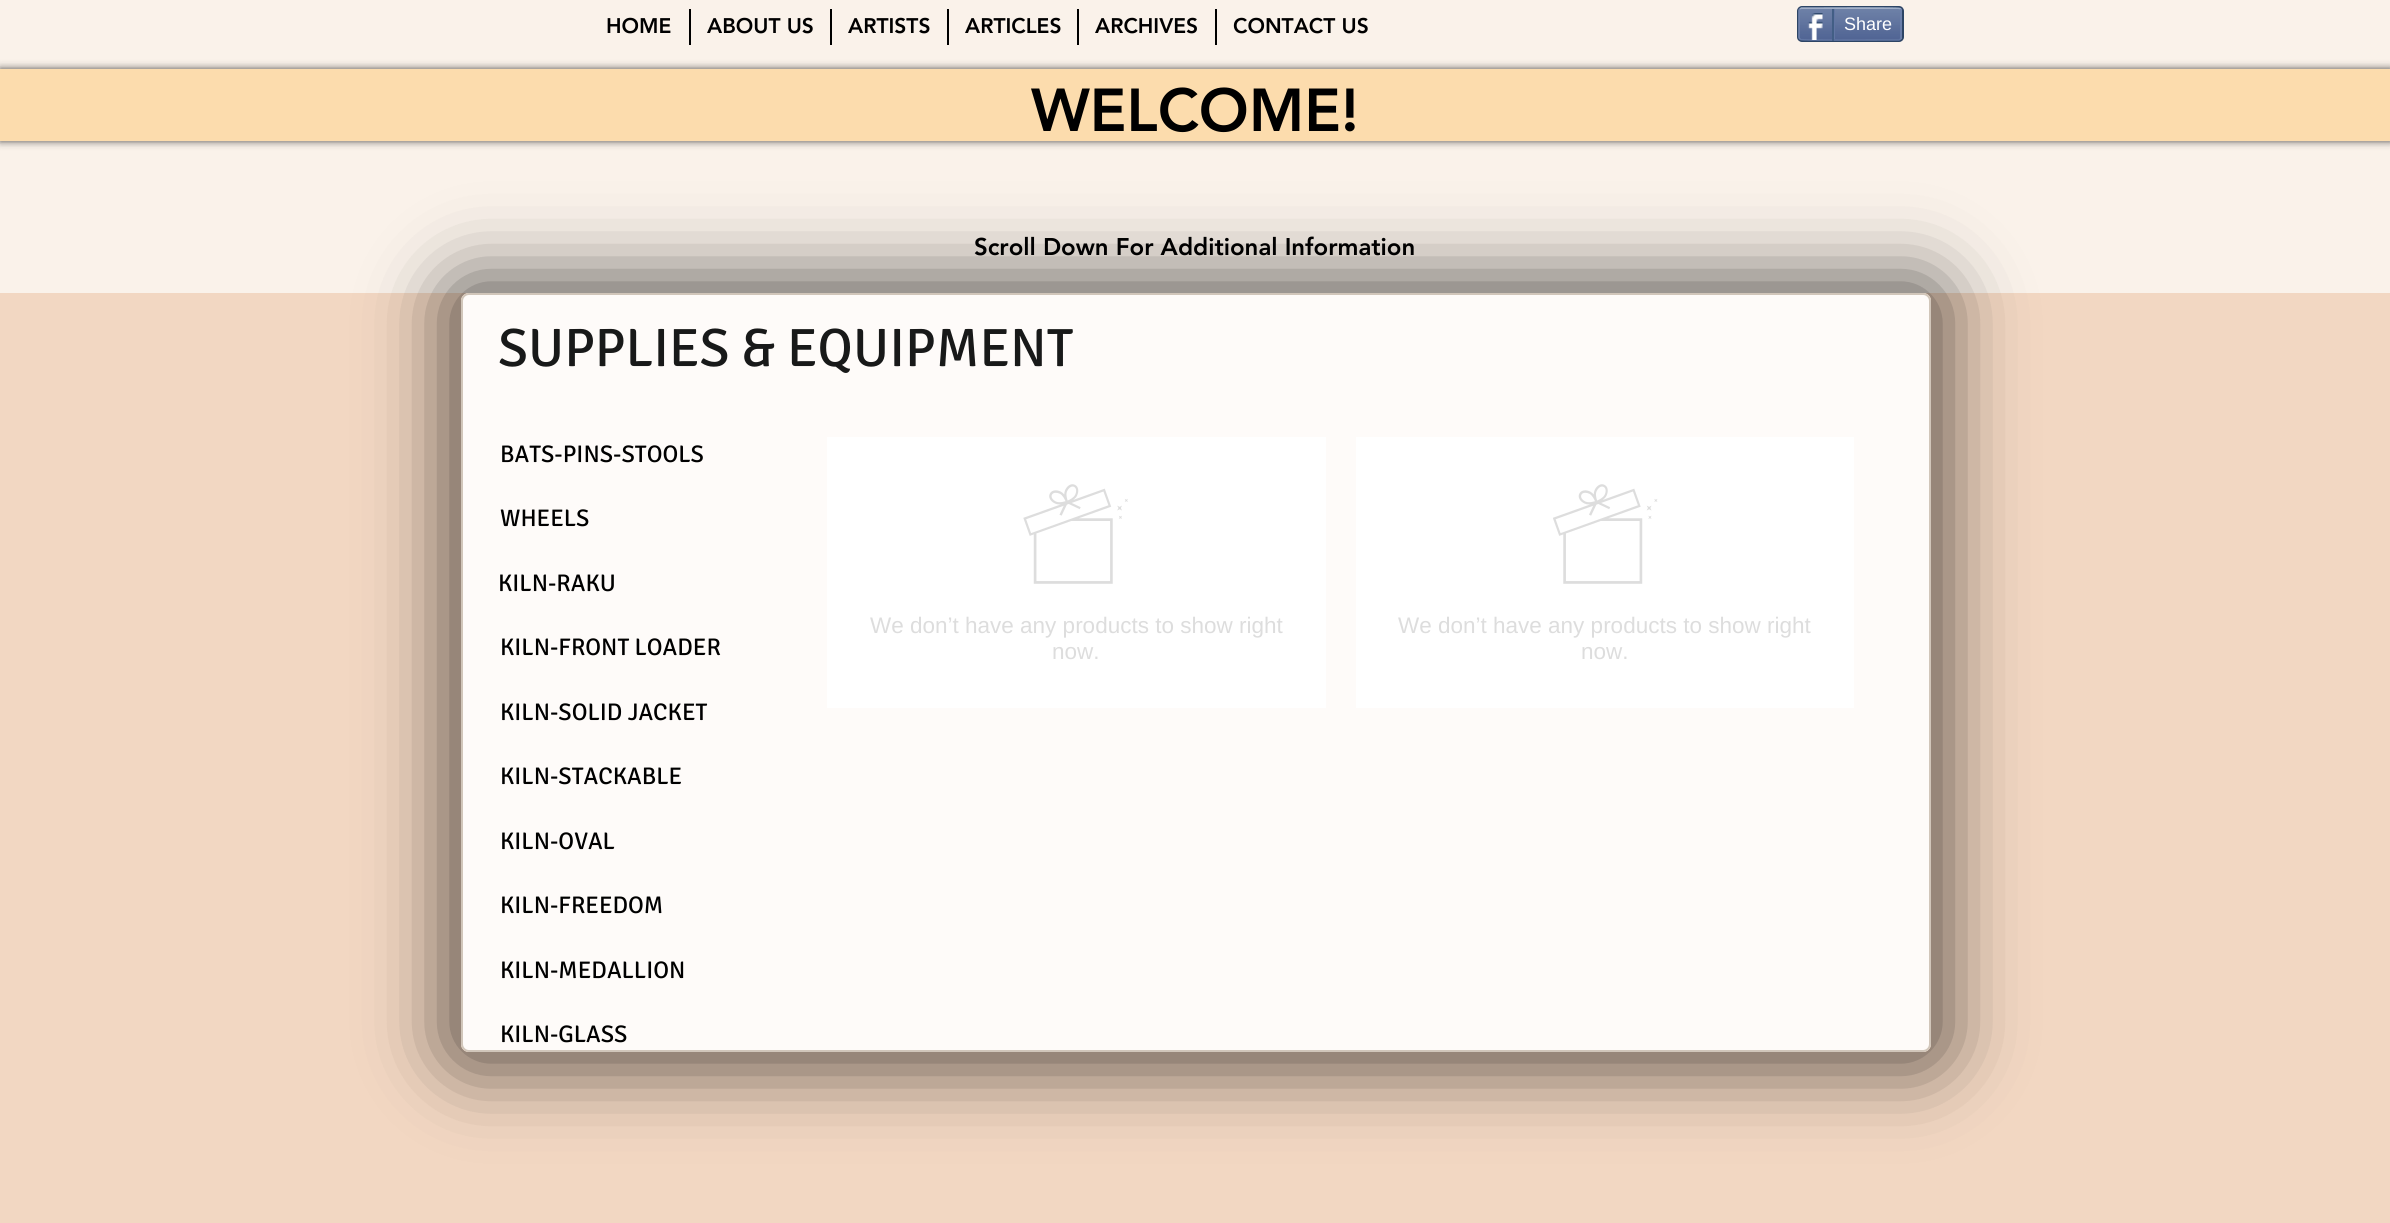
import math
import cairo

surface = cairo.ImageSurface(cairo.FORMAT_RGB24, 2390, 1223)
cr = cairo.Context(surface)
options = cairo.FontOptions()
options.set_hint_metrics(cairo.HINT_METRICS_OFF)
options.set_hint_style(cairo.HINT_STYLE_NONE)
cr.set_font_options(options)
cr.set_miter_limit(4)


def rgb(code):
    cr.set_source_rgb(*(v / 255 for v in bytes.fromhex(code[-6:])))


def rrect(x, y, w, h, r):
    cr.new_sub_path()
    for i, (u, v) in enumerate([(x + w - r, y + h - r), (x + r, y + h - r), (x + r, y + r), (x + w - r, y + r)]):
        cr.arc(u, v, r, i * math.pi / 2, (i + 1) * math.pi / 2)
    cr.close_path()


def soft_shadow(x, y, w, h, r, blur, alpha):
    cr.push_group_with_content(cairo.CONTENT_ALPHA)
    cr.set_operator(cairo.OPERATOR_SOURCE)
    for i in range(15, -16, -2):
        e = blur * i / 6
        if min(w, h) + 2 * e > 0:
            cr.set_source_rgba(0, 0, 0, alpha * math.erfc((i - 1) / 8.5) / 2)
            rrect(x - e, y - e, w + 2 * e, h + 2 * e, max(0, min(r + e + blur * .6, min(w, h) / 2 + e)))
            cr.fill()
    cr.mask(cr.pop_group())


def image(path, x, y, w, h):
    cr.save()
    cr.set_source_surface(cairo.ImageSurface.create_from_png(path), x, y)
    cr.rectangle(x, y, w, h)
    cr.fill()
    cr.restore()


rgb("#f2d7c2")
cr.paint()
rgb("#faf2ea")
cr.rectangle(0, 0, 2390, 293)
cr.fill()
rrect(1798, 7, 105, 34, 4)
rgb("#2d4565")
cr.stroke()
image("img/1.png", 1798, 8, 104, 32)
cr.new_path()
cr.move_to(1800, 9)
cr.line_to(1801.5, 8)
cr.line_to(1818, 8)
cr.curve_to(1826, 8, 1898.5, 7.5, 1900, 8.5)
cr.line_to(1900.5, 9)
rgb("#9aabc6")
cr.set_line_width(1.5)
cr.stroke()
cr.new_path()
cr.move_to(1900.5, 9)
cr.curve_to(1901, 9.5, 1901, 10, 1901, 10.5)
cr.line_to(1901, 37.5)
cr.curve_to(1901, 38, 1901, 38.5, 1900.5, 39)
rgb("#6f83ad")
cr.stroke()
cr.new_path()
cr.move_to(1900.5, 39)
cr.line_to(1899, 40)
cr.line_to(1883, 40)
cr.curve_to(1874.5, 40, 1802, 40.5, 1800.5, 39.5)
cr.line_to(1800, 39)
rgb("#6176a3")
cr.stroke()
cr.new_path()
cr.move_to(1800, 39)
cr.curve_to(1799.5, 38.5, 1799, 38, 1799, 37.5)
cr.line_to(1799, 10.5)
cr.curve_to(1799, 10, 1799.5, 9.5, 1800, 9)
rgb("#6f83ad")
cr.stroke()
image("img/2.png", 1807, 13, 16, 27)
rgb("#425e85")
cr.rectangle(1832, 9, 2, 32)
cr.fill()
rgb("#6176a3")
cr.rectangle(1834, 9, 1, 30)
cr.fill()
rgb("#000000")
soft_shadow(0, 69, 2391, 72, 0, 4, 0.7)
for x, y, w, h, color in [
    (0, 69, 2390, 72, "#fcdcad"),
    (689, 9, 2, 36, "#000000"),
    (830, 9, 2, 36, "#000000"),
    (947, 9, 2, 36, "#000000"),
    (1077, 9, 2, 36, "#000000"),
    (1215, 9, 2, 36, "#000000"),
]:
    rgb(color)
    cr.rectangle(x, y, w, h)
    cr.fill()
cr.save()
cr.set_fill_rule(cairo.FILL_RULE_EVEN_ODD)
cr.new_path()
cr.move_to(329, 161)
cr.line_to(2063, 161)
cr.line_to(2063, 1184)
cr.line_to(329, 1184)
cr.close_path()
cr.move_to(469, 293)
cr.line_to(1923, 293)
cr.curve_to(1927.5, 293, 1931, 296.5, 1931, 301)
cr.line_to(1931, 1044)
cr.curve_to(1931, 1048.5, 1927.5, 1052, 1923, 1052)
cr.line_to(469, 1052)
cr.curve_to(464.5, 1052, 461, 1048.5, 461, 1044)
cr.line_to(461, 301)
cr.curve_to(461, 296.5, 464.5, 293, 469, 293)
cr.close_path()
cr.clip()
rgb("#000000")
soft_shadow(443, 275, 1506, 795, 26, 37.5, 0.6)
cr.restore()
cr.set_source_rgba(1, 1, 1, 0.9)
rrect(461, 293, 1470, 759, 8)
cr.fill()
rrect(462, 294, 1468, 757, 7)
cr.set_source_rgba(0.322, 0.188, 0.016, 0.26)
cr.set_line_width(2)
cr.stroke()
rgb("#ffffff")
cr.rectangle(827, 437, 499, 271)
cr.fill()
image("img/3.png", 1023, 484, 105, 100)
cr.rectangle(1356, 437, 498, 271)
cr.fill()
image("img/4.png", 1553, 484, 105, 100)
cr.select_font_face("Liberation Sans")
cr.set_font_size(18)
cr.move_to(1844, 30)
cr.show_text("Share")
cr.select_font_face("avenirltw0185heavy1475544 Black")
cr.set_font_size(60)
rgb("#000000")
cr.move_to(1031, 131)
cr.show_text("WELCOME!")
cr.set_font_size(24)
cr.move_to(974, 255)
cr.show_text("Scroll Down For Additional Information")
cr.set_font_size(21)
for x, y, s in [
    (606, 33, "HOME"),
    (707, 33, "ABOUT US"),
    (848, 33, "ARTISTS"),
    (965, 33, "ARTICLES"),
    (1095, 33, "ARCHIVES"),
    (1233, 33, "CONTACT US"),
]:
    cr.move_to(x, y)
    cr.show_text(s)
cr.select_font_face("Signika")
cr.set_font_size(54)
rgb("#181919")
cr.move_to(498, 366)
cr.show_text("SUPPLIES & EQUIPMENT")
cr.set_font_size(24)
rgb("#000000")
for x, y, s in [
    (500, 462, "BATS-PINS-STOOLS"),
    (500, 526, "WHEELS"),
    (498, 591, "KILN-RAKU"),
    (500, 655, "KILN-FRONT LOADER"),
]:
    cr.move_to(x, y)
    cr.show_text(s)
cr.select_font_face("Liberation Sans")
cr.set_font_size(22.5)
rgb("#dddddd")
for x, y, s in [
    (870, 633, "We don’t have any products to show right"),
    (1052, 659, "now."),
    (1398, 633, "We don’t have any products to show right"),
    (1581, 659, "now."),
]:
    cr.move_to(x, y)
    cr.show_text(s)
cr.select_font_face("Signika")
cr.set_font_size(24)
rgb("#000000")
for x, y, s in [
    (500, 720, "KILN-SOLID JACKET"),
    (500, 784, "KILN-STACKABLE"),
    (500, 849, "KILN-OVAL"),
    (500, 913, "KILN-FREEDOM"),
    (500, 978, "KILN-MEDALLION"),
    (500, 1042, "KILN-GLASS"),
]:
    cr.move_to(x, y)
    cr.show_text(s)
surface.write_to_png("page.png")
